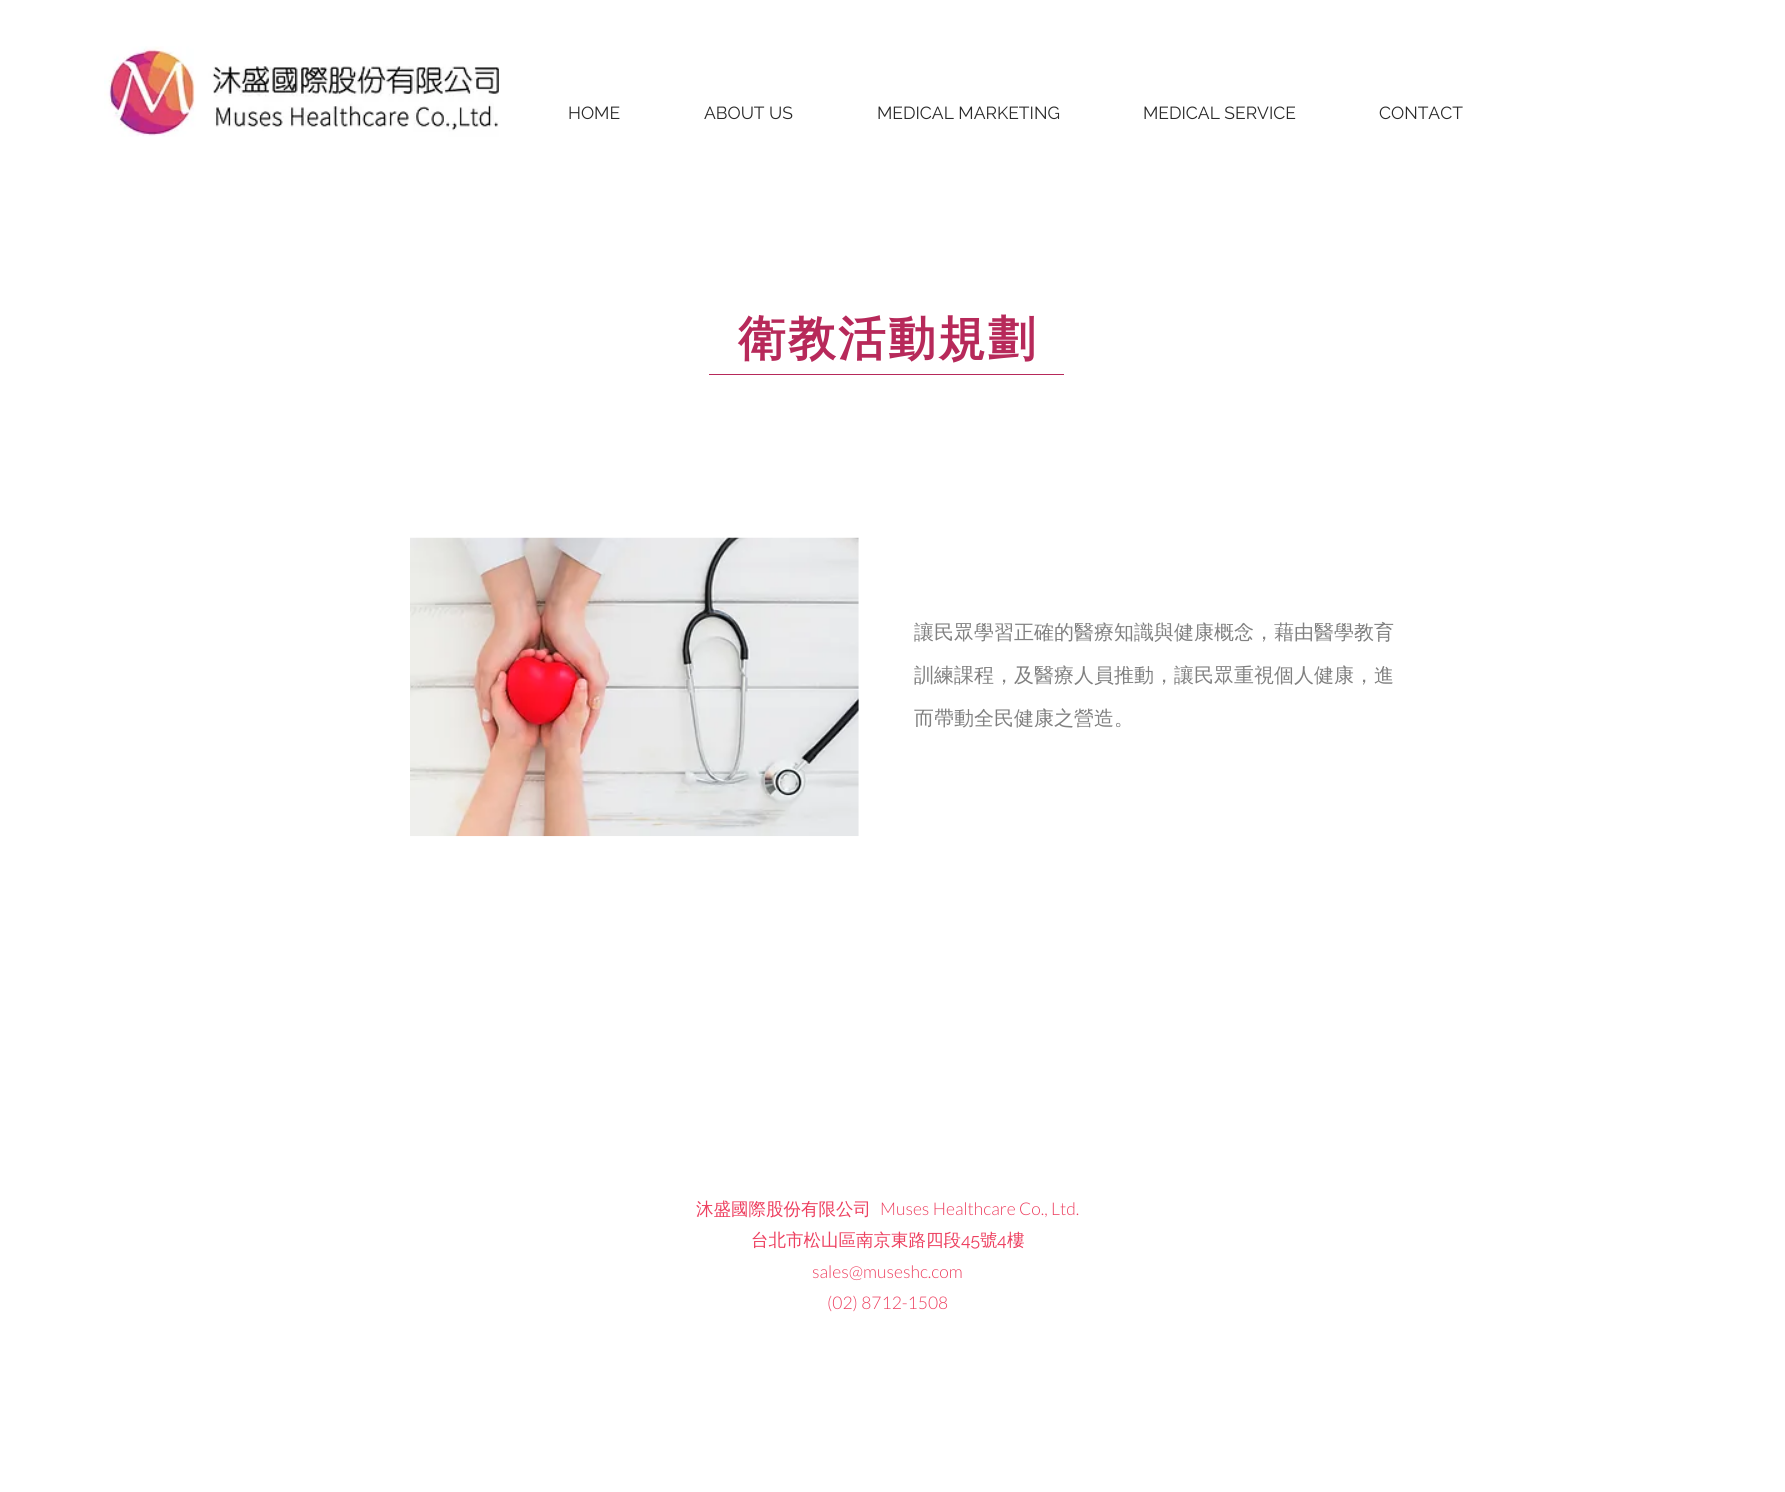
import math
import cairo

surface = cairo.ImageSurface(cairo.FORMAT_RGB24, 1785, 1492)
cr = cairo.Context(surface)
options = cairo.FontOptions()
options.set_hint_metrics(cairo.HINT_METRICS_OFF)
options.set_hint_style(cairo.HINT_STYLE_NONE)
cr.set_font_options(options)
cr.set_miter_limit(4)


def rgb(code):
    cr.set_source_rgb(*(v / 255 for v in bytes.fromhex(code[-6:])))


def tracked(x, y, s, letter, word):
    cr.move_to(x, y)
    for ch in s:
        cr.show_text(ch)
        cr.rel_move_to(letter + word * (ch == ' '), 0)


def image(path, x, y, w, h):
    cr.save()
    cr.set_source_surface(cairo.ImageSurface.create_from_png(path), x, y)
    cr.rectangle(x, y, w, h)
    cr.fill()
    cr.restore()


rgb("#ffffff")
cr.paint()
image("img/1.png", 104, 46, 395, 91)
rgb("#b7295a")
cr.rectangle(709, 374, 355, 1)
cr.fill()
image("img/2.png", 410, 537, 449, 300)
cr.select_font_face("Raleway")
cr.set_font_size(17.5)
rgb("#2a2a2a")
for x, y, s in [
    (568, 119, "HOME"),
    (704, 119, "ABOUT US"),
    (877, 119, "MEDICAL MARKETING"),
    (1143, 119, "MEDICAL SERVICE"),
    (1379, 119, "CONTACT"),
]:
    cr.move_to(x, y)
    cr.show_text(s)
cr.select_font_face("WenQuanYi Zen Hei", cairo.FONT_SLANT_NORMAL, cairo.FONT_WEIGHT_BOLD)
cr.set_font_size(47.5)
rgb("#b7295a")
tracked(738, 355, "衛教活動規劃", 2.5, 0)
cr.select_font_face("WenQuanYi Zen Hei Medium")
cr.set_font_size(20)
rgb("#808080")
for x, y, s in [
    (914, 639, "讓民眾學習正確的醫療知識與健康概念，藉由醫學教育"),
    (914, 682, "訓練課程，及醫療人員推動，讓民眾重視個人健康，進"),
    (914, 725, "而帶動全民健康之營造。"),
]:
    cr.move_to(x, y)
    cr.show_text(s)
cr.set_font_size(17.5)
rgb("#ed4060")
cr.move_to(696, 1215)
cr.show_text("沐盛國際股份有限公司")
cr.select_font_face("Lato Light")
cr.move_to(880, 1215)
cr.show_text("Muses Healthcare Co., Ltd.")
cr.select_font_face("WenQuanYi Zen Hei Medium")
cr.move_to(751, 1246)
cr.show_text("台北市松山區南京東路四段")
cr.select_font_face("Raleway")
cr.move_to(961, 1246)
cr.show_text("45")
cr.select_font_face("WenQuanYi Zen Hei Medium")
cr.move_to(980, 1246)
cr.show_text("號")
cr.select_font_face("Raleway")
cr.move_to(997, 1246)
cr.show_text("4")
cr.select_font_face("WenQuanYi Zen Hei Medium")
cr.move_to(1007, 1246)
cr.show_text("樓")
cr.select_font_face("Lato Light")
cr.move_to(812, 1278)
cr.show_text("sales@museshc.com")
cr.move_to(827, 1309)
cr.show_text("(02) 8712-1508")
surface.write_to_png("page.png")
